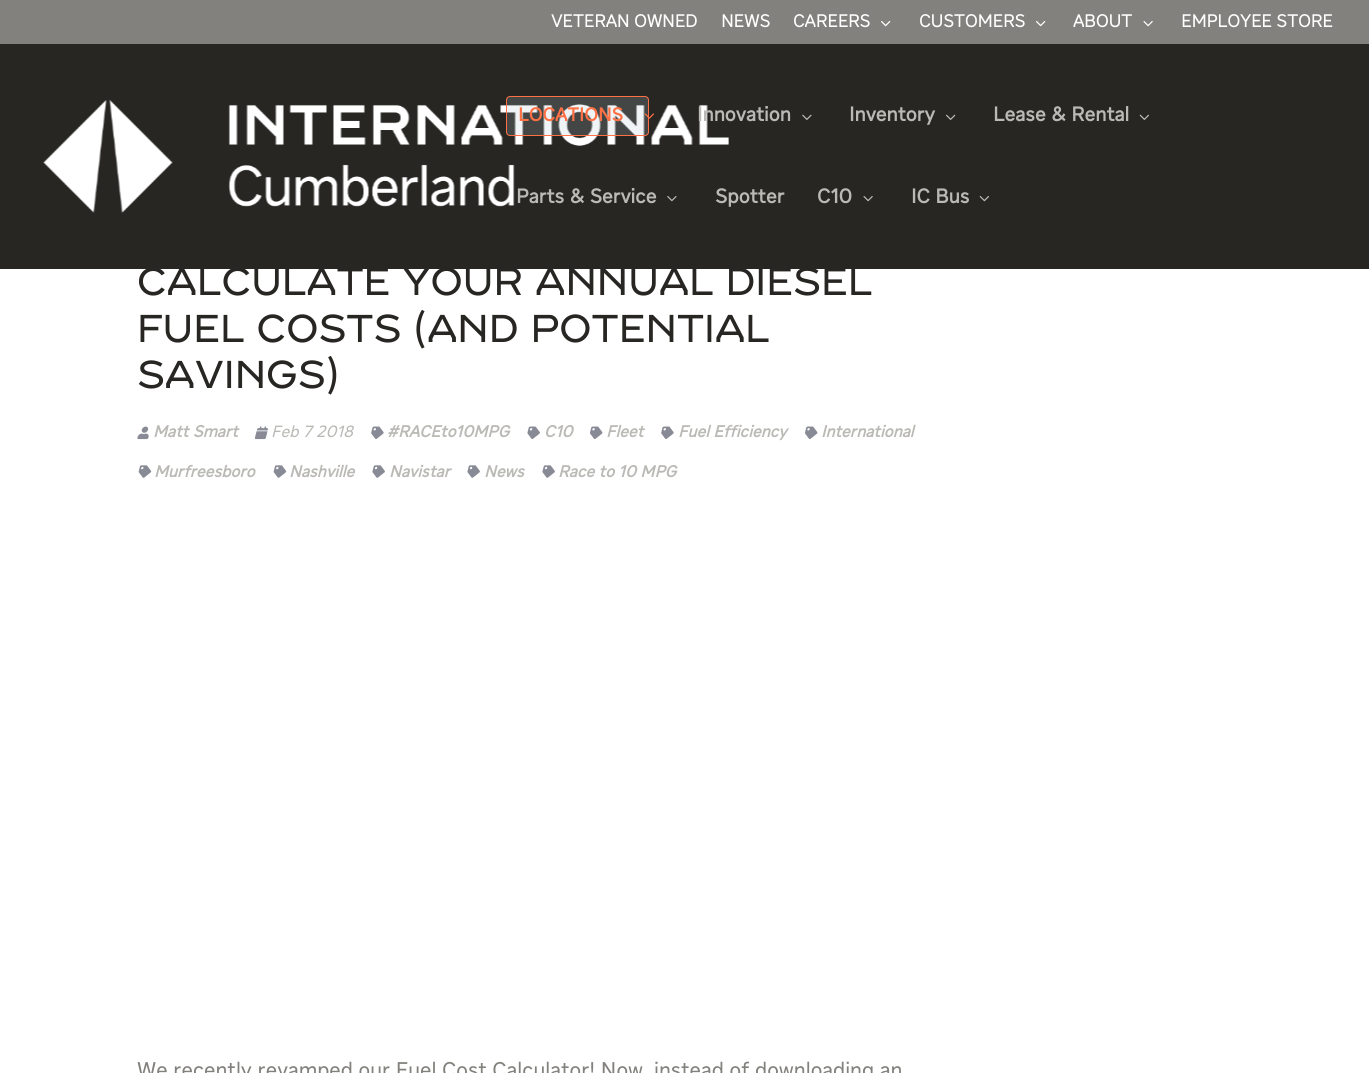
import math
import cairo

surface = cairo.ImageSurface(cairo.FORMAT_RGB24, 1369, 1073)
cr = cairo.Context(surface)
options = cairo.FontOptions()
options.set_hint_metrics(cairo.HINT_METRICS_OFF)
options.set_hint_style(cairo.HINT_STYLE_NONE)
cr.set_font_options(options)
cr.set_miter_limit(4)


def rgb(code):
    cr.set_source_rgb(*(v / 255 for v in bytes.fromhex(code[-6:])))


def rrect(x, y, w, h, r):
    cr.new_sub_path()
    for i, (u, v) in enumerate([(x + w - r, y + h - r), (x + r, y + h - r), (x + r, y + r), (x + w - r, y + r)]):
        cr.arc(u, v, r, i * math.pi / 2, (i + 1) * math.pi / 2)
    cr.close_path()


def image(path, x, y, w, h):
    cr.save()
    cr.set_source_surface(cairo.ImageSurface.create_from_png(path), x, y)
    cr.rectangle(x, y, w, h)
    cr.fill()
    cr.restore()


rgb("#ffffff")
cr.paint()
rgb("#82817d")
cr.rectangle(0, 0, 1369, 44)
cr.fill()
image("img/1.png", 881, 21, 10, 6)
image("img/1.png", 1036, 21, 10, 6)
image("img/2.png", 1143, 21, 10, 6)
rgb("#272623")
cr.rectangle(0, 44, 1369, 225)
cr.fill()
image("img/3.png", 43, 100, 686, 113)
cr.set_source_rgba(0.741, 0.784, 0.835, 0.2)
rrect(506.5, 96.5, 142, 39, 3.5)
cr.fill_preserve()
rgb("#ff7144")
cr.set_line_width(1)
cr.stroke()
image("img/4.png", 644, 113, 10, 6)
image("img/5.png", 802, 114, 10, 6)
image("img/6.png", 946, 114, 10, 6)
image("img/7.png", 1139, 114, 10, 6)
image("img/8.png", 667, 196, 10, 6)
image("img/9.png", 863, 196, 10, 6)
image("img/10.png", 979, 196, 10, 6)
image("img/11.png", 137, 426, 12, 14)
image("img/12.png", 254, 426, 14, 14)
image("img/13.png", 371, 426, 13, 13)
image("img/14.png", 527, 426, 13, 13)
image("img/15.png", 590, 426, 13, 13)
image("img/13.png", 661, 426, 13, 13)
image("img/15.png", 805, 426, 13, 13)
image("img/16.png", 138, 465, 14, 13)
image("img/16.png", 273, 465, 14, 13)
image("img/17.png", 372, 465, 13, 13)
image("img/17.png", 467, 465, 13, 13)
image("img/17.png", 542, 465, 13, 13)
cr.select_font_face("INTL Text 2", cairo.FONT_SLANT_NORMAL, cairo.FONT_WEIGHT_BOLD)
cr.set_font_size(17.5)
rgb("#ffffff")
for x, y, s in [
    (551, 27, "VETERAN OWNED"),
    (721, 27, "NEWS"),
    (793, 27, "CAREERS"),
    (919, 27, "CUSTOMERS"),
    (1073, 27, "ABOUT"),
    (1181, 27, "EMPLOYEE STORE"),
]:
    cr.move_to(x, y)
    cr.show_text(s)
cr.select_font_face("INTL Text", cairo.FONT_SLANT_NORMAL, cairo.FONT_WEIGHT_BOLD)
cr.set_font_size(18.75)
rgb("#ff7144")
cr.move_to(518, 121)
cr.show_text("LOCATIONS")
cr.set_font_size(20)
rgb("#bab9b5")
for x, y, s in [
    (697, 121, "Innovation"),
    (849, 121, "Inventory"),
    (993, 121, "Lease & Rental"),
    (516, 203, "Parts & Service"),
    (715, 203, "Spotter"),
    (817, 203, "C10"),
    (911, 203, "IC Bus"),
]:
    cr.move_to(x, y)
    cr.show_text(s)
cr.select_font_face("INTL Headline")
cr.set_font_size(38.75)
rgb("#272623")
for x, y, s in [
    (137, 295, "Calculate Your Annual Diesel"),
    (137, 342, "Fuel Costs (and Potential"),
    (137, 388, "Savings)"),
]:
    cr.move_to(x, y)
    cr.show_text(s)
cr.select_font_face("INTL Text", cairo.FONT_SLANT_ITALIC, cairo.FONT_WEIGHT_BOLD)
cr.set_font_size(16.25)
rgb("#bab9b5")
cr.move_to(153, 437)
cr.show_text("Matt Smart")
cr.select_font_face("INTL Text", cairo.FONT_SLANT_ITALIC)
cr.move_to(271, 437)
cr.show_text("Feb 7 2018")
cr.select_font_face("INTL Text", cairo.FONT_SLANT_ITALIC, cairo.FONT_WEIGHT_BOLD)
for x, y, s in [
    (387, 437, "#RACEto10MPG"),
    (544, 437, "C10"),
    (606, 437, "Fleet"),
    (678, 437, "Fuel Efficiency"),
    (821, 437, "International"),
    (154, 477, "Murfreesboro"),
    (289, 477, "Nashville"),
    (389, 477, "Navistar"),
    (484, 477, "News"),
    (558, 477, "Race to 10 MPG"),
]:
    cr.move_to(x, y)
    cr.show_text(s)
cr.select_font_face("INTL Text")
cr.set_font_size(21.25)
rgb("#82817d")
cr.move_to(137, 1077)
cr.show_text("We recently revamped our Fuel Cost Calculator! Now, instead of downloading an")
surface.write_to_png("page.png")
